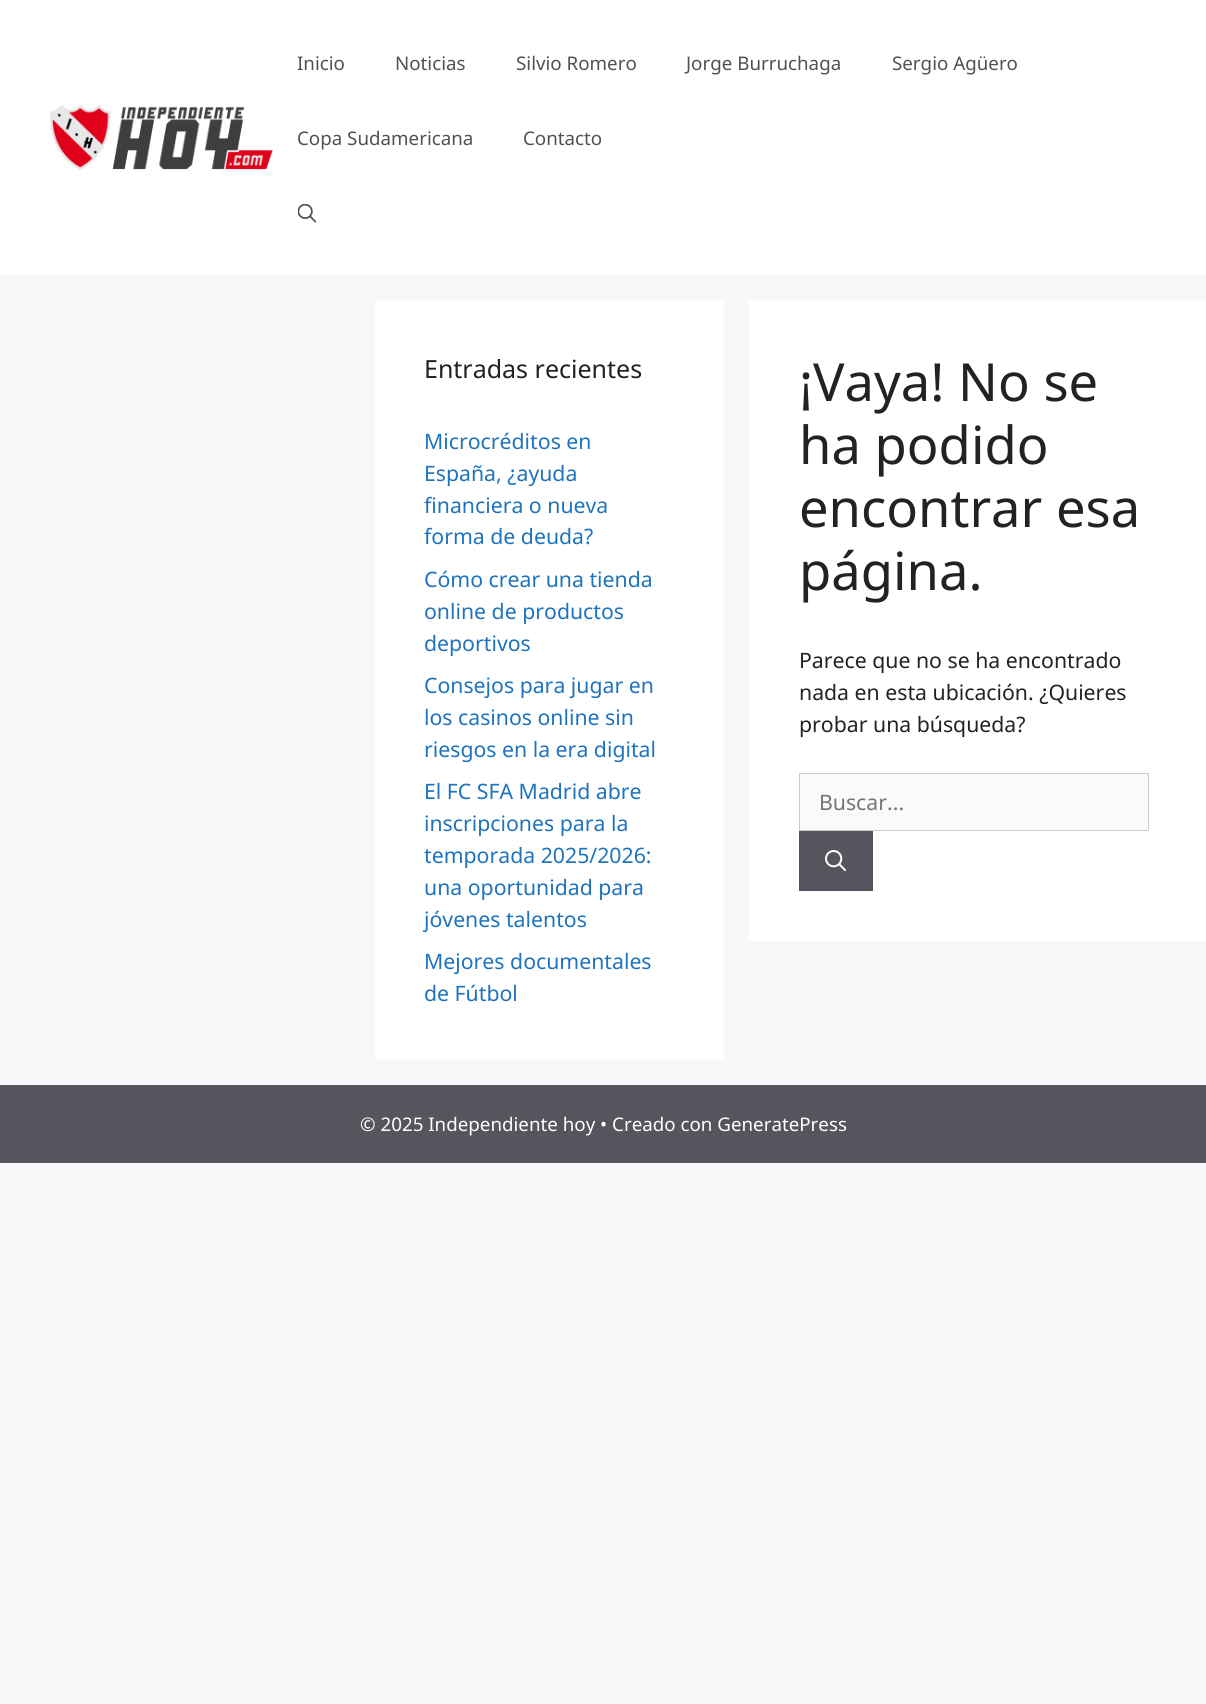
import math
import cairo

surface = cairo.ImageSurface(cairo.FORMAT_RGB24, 1206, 1704)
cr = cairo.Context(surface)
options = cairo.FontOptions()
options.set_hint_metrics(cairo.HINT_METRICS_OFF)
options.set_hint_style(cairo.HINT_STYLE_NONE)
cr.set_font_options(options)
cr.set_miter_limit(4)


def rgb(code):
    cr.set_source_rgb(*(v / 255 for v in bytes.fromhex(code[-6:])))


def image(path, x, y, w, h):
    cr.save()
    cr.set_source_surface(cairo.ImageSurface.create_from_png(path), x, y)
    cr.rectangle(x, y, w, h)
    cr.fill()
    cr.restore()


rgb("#f7f8f9")
cr.paint()
rgb("#ffffff")
cr.rectangle(0, 0, 1206, 275)
cr.fill()
image("img/1.png", 50, 105, 223, 65)
image("img/2.png", 298, 204, 18, 19)
cr.rectangle(375, 300, 349, 760)
cr.fill()
cr.rectangle(749, 300, 457, 641)
cr.fill()
rgb("#fafafa")
cr.rectangle(799.5, 773.5, 349, 57)
cr.fill_preserve()
rgb("#cccccc")
cr.set_line_width(1)
cr.stroke()
rgb("#55555e")
cr.rectangle(799, 831, 74, 60)
cr.fill()
image("img/3.png", 825, 850, 21, 21)
cr.rectangle(0, 1085, 1206, 78)
cr.fill()
cr.select_font_face("Noto Sans")
cr.set_font_size(18.75)
rgb("#515151")
for x, y, s in [
    (297, 70, "Inicio"),
    (395, 70, "Noticias"),
    (516, 70, "Silvio Romero"),
    (686, 70, "Jorge Burruchaga"),
    (892, 70, "Sergio Agüero"),
    (297, 145, "Copa Sudamericana"),
    (523, 145, "Contacto"),
]:
    cr.move_to(x, y)
    cr.show_text(s)
cr.set_font_size(25)
rgb("#222222")
cr.move_to(424, 378)
cr.show_text("Entradas recientes")
cr.set_font_size(21.25)
rgb("#1e73be")
for x, y, s in [
    (424, 449, "Microcréditos en"),
    (424, 481, "España, ¿ayuda"),
    (424, 513, "financiera o nueva"),
    (424, 544, "forma de deuda?"),
    (424, 587, "Cómo crear una tienda"),
    (424, 619, "online de productos"),
    (424, 651, "deportivos"),
    (424, 693, "Consejos para jugar en"),
    (424, 725, "los casinos online sin"),
    (424, 757, "riesgos en la era digital"),
    (424, 799, "El FC SFA Madrid abre"),
    (424, 831, "inscripciones para la"),
    (424, 863, "temporada 2025/2026:"),
    (424, 895, "una oportunidad para"),
    (424, 927, "jóvenes talentos"),
    (424, 969, "Mejores documentales"),
    (424, 1001, "de Fútbol"),
]:
    cr.move_to(x, y)
    cr.show_text(s)
cr.set_font_size(52.5)
rgb("#222222")
for x, y, s in [
    (799, 401, "¡Vaya! No se"),
    (799, 464, "ha podido"),
    (799, 527, "encontrar esa"),
    (799, 590, "página."),
]:
    cr.move_to(x, y)
    cr.show_text(s)
cr.set_font_size(21.25)
for x, y, s in [
    (799, 668, "Parece que no se ha encontrado"),
    (799, 700, "nada en esta ubicación. ¿Quieres"),
    (799, 732, "probar una búsqueda?"),
]:
    cr.move_to(x, y)
    cr.show_text(s)
rgb("#757575")
cr.move_to(819, 810)
cr.show_text("Buscar...")
cr.set_font_size(18.75)
rgb("#ffffff")
cr.move_to(360, 1131)
cr.show_text("© 2025 Independiente hoy • Creado con GeneratePress")
surface.write_to_png("page.png")
